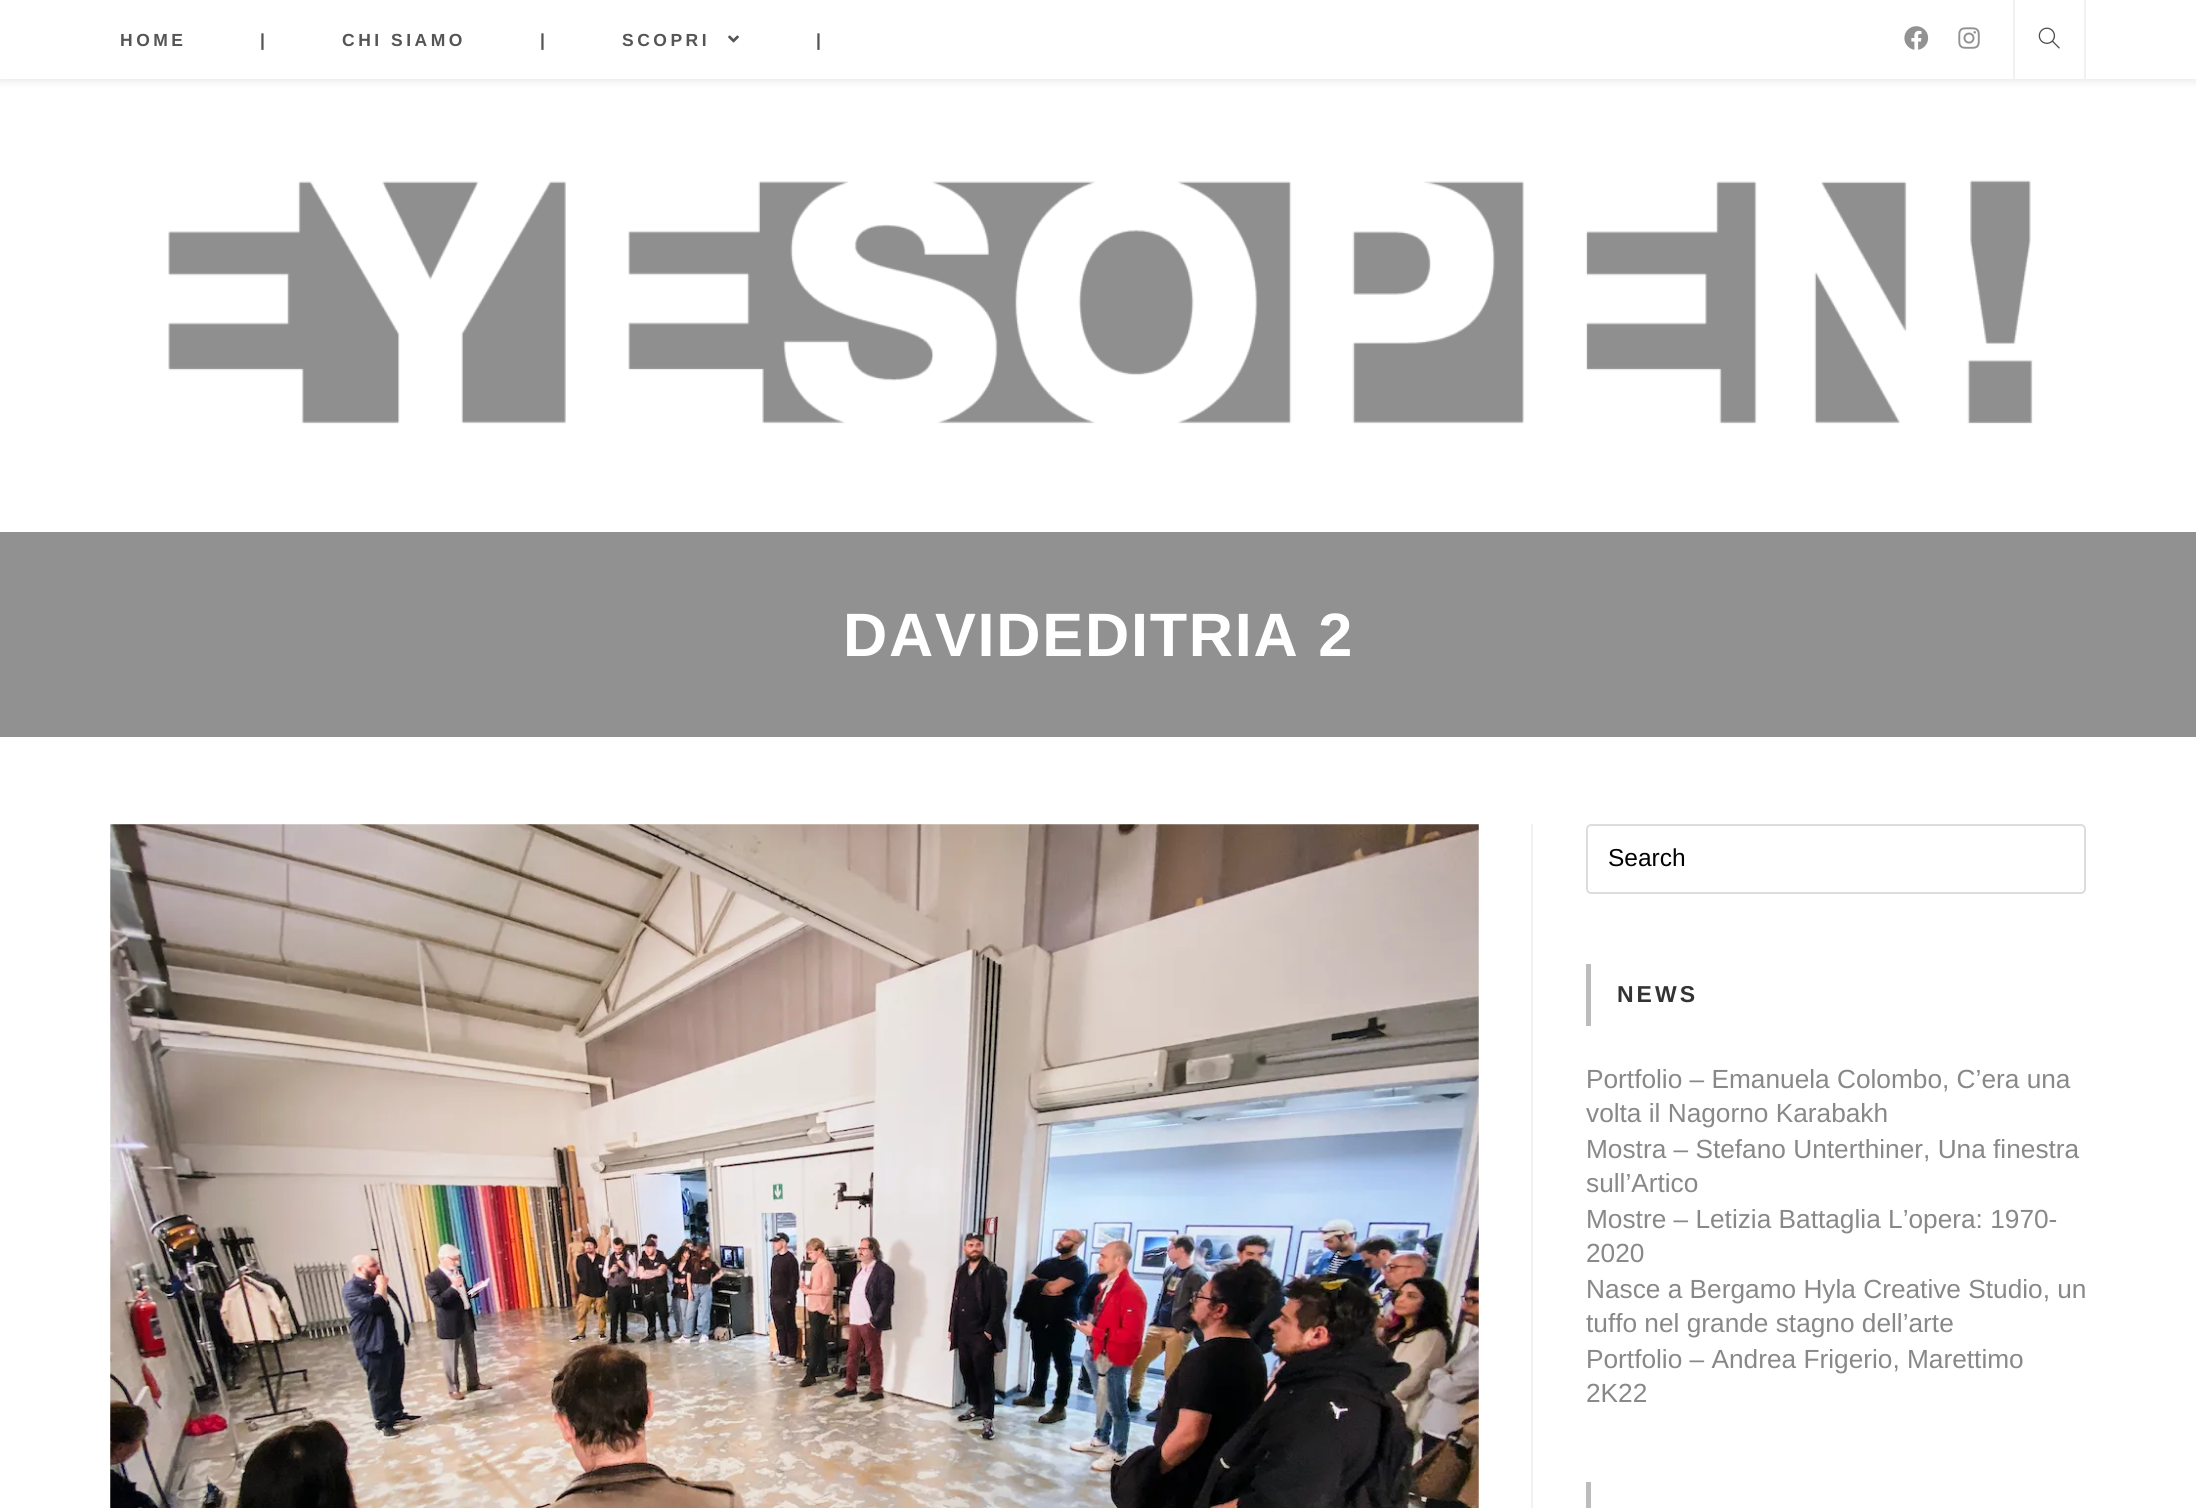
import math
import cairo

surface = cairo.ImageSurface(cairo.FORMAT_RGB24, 2196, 1508)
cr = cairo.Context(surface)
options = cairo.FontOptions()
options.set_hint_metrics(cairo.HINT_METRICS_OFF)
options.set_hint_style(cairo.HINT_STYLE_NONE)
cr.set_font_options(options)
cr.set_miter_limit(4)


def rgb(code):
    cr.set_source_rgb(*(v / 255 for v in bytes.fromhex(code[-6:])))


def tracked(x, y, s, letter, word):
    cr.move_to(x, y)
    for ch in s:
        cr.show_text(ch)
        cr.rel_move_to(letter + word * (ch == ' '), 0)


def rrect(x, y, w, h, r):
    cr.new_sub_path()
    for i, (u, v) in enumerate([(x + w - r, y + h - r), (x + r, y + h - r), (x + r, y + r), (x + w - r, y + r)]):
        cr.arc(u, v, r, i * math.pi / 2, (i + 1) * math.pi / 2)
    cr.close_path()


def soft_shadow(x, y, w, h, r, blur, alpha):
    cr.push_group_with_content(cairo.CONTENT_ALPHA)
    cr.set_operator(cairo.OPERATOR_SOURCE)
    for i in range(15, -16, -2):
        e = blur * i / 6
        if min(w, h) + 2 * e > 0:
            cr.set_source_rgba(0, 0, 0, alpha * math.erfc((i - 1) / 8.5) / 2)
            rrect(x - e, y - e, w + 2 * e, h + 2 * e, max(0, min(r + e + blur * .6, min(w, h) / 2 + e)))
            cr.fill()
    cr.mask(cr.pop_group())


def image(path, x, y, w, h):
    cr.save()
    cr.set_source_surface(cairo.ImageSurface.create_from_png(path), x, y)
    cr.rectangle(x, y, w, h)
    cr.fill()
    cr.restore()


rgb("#ffffff")
cr.paint()
rgb("#000000")
soft_shadow(0, 2, 2196, 79, 0, 4.5, 0.1)
rgb("#ffffff")
cr.rectangle(0, 0, 2196, 79)
cr.fill()
image("img/1.png", 728, 35, 11, 8)
image("img/2.png", 1904, 26, 25, 24)
image("img/3.png", 1958, 27, 22, 22)
rgb("#f1f1f1")
cr.rectangle(2084, 0, 2, 79)
cr.fill()
cr.rectangle(2013, 0, 2, 79)
cr.fill()
image("img/4.png", 2038, 27, 22, 22)
image("img/5.png", 168, 180, 1865, 244)
rgb("#919191")
cr.rectangle(0, 532, 2196, 205)
cr.fill()
rgb("#f1f1f1")
cr.rectangle(1531, 824, 2, 684)
cr.fill()
image("img/6.png", 110, 824, 1369, 684)
rrect(1587, 825, 498, 68, 4)
rgb("#dddddd")
cr.stroke()
rgb("#bcbcbc")
cr.rectangle(1586, 964, 5, 62)
cr.fill()
cr.rectangle(1586, 1482, 5, 26)
cr.fill()
cr.select_font_face("Liberation Sans", cairo.FONT_SLANT_NORMAL, cairo.FONT_WEIGHT_BOLD)
cr.set_font_size(17.5)
rgb("#555555")
for x, y, s in [
    (120, 46, "HOME"),
    (260, 46, "|"),
    (342, 46, "CHI SIAMO"),
    (540, 46, "|"),
    (622, 46, "SCOPRI"),
    (816, 46, "|"),
]:
    tracked(x, y, s, 3.5, 0)
cr.set_font_size(61.25)
rgb("#ffffff")
tracked(843, 656, "DAVIDEDITRIA 2", 1.75, 0)
cr.select_font_face("Liberation Sans")
cr.set_font_size(24.5)
rgb("#000000")
cr.move_to(1608, 866)
cr.show_text("Search")
cr.select_font_face("Liberation Sans", cairo.FONT_SLANT_NORMAL, cairo.FONT_WEIGHT_BOLD)
cr.set_font_size(23)
rgb("#333333")
tracked(1617, 1002, "NEWS", 3, 0)
cr.select_font_face("Liberation Sans")
cr.set_font_size(26.25)
rgb("#888888")
for x, y, s in [
    (1586, 1088, "Portfolio – Emanuela Colombo, C’era una"),
    (1586, 1122, "volta il Nagorno Karabakh"),
    (1586, 1158, "Mostra – Stefano Unterthiner, Una finestra"),
    (1586, 1192, "sull’Artico"),
    (1586, 1228, "Mostre – Letizia Battaglia L’opera: 1970-"),
    (1586, 1262, "2020"),
    (1586, 1298, "Nasce a Bergamo Hyla Creative Studio, un"),
    (1586, 1332, "tuffo nel grande stagno dell’arte"),
    (1586, 1368, "Portfolio – Andrea Frigerio, Marettimo"),
    (1586, 1402, "2K22"),
]:
    cr.move_to(x, y)
    cr.show_text(s)
surface.write_to_png("page.png")
